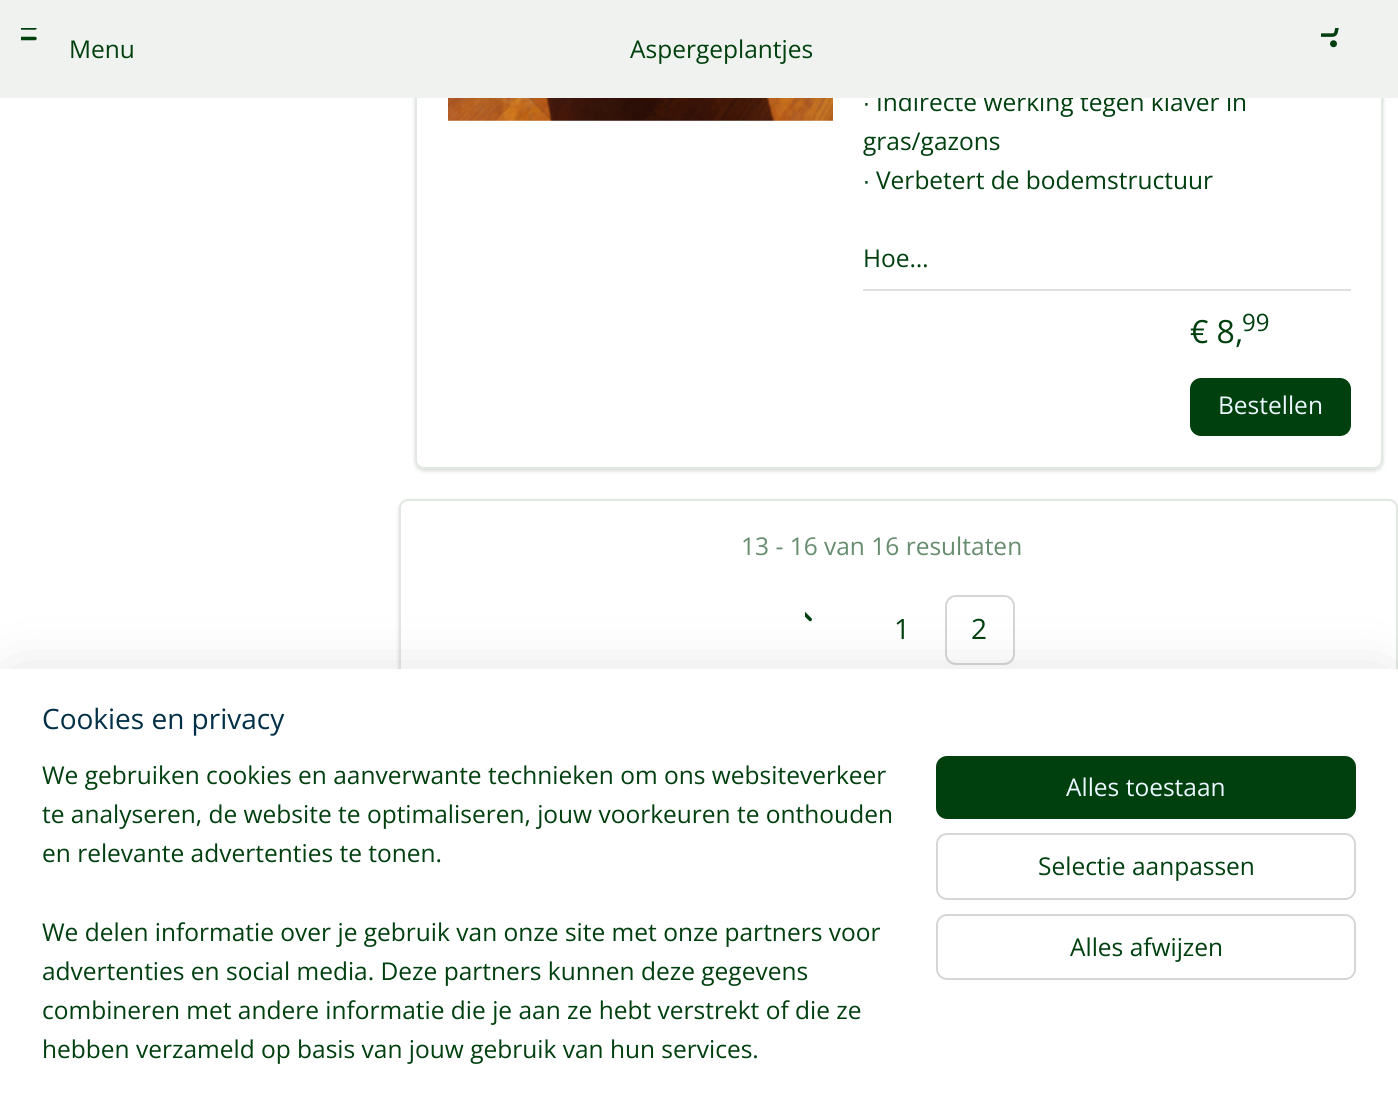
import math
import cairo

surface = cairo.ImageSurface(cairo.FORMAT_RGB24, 1398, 1110)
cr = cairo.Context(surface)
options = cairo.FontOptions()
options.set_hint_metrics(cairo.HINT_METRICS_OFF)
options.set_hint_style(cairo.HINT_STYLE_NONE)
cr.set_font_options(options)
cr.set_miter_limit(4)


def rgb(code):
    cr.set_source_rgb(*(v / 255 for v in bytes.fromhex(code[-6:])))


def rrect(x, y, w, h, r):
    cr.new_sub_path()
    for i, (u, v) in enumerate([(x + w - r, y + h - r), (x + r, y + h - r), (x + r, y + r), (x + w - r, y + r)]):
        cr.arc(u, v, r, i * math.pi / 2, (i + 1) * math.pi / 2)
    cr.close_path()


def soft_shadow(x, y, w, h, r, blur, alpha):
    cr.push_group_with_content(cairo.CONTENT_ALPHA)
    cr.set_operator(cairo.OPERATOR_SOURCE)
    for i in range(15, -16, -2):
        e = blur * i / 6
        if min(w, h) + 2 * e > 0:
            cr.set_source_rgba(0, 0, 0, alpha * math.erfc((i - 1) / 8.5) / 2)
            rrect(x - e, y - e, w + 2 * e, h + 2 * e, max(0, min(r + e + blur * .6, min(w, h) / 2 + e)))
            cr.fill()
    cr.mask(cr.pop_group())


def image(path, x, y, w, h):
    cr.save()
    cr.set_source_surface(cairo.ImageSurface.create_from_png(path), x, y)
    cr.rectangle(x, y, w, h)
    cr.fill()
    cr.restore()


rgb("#ffffff")
cr.paint()
cr.save()
cr.set_fill_rule(cairo.FILL_RULE_EVEN_ODD)
cr.new_path()
cr.move_to(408, 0)
cr.line_to(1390, 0)
cr.line_to(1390, 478)
cr.line_to(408, 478)
cr.close_path()
cr.move_to(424, -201)
cr.line_to(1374, -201)
cr.curve_to(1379, -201, 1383, -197, 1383, -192)
cr.line_to(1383, 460)
cr.curve_to(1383, 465, 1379, 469, 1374, 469)
cr.line_to(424, 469)
cr.curve_to(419, 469, 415, 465, 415, 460)
cr.line_to(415, -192)
cr.curve_to(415, -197, 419, -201, 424, -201)
cr.close_path()
cr.clip()
rgb("#000000")
soft_shadow(415, -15, 968, 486, 9, 2, 0.15)
cr.restore()
rrect(416, -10, 966, 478, 8)
rgb("#e1e7e1")
cr.stroke()
image("img/3.png", 448, 98, 385, 23)
rgb("#e0e0e0")
cr.rectangle(863, 289, 488, 2)
cr.fill()
rgb("#003f0e")
rrect(1190, 378, 161, 58, 11)
cr.fill()
cr.save()
cr.set_fill_rule(cairo.FILL_RULE_EVEN_ODD)
cr.new_path()
cr.move_to(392, 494)
cr.line_to(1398, 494)
cr.line_to(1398, 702)
cr.line_to(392, 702)
cr.close_path()
cr.move_to(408, 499)
cr.line_to(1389, 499)
cr.curve_to(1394, 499, 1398, 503, 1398, 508)
cr.line_to(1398, 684)
cr.curve_to(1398, 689, 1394, 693, 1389, 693)
cr.line_to(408, 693)
cr.curve_to(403, 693, 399, 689, 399, 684)
cr.line_to(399, 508)
cr.curve_to(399, 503, 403, 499, 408, 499)
cr.close_path()
cr.clip()
rgb("#000000")
soft_shadow(399, 501, 999, 194, 9, 2, 0.15)
cr.restore()
rrect(400, 500, 997, 192, 8)
rgb("#e1e7e1")
cr.stroke()
image("img/4.png", 805, 611, 7, 11)
rrect(946, 596, 68, 68, 10)
rgb("#d6d6d6")
cr.stroke()
rgb("#000000")
soft_shadow(18, 686, 1363, 408, 0, 31.5, 0.2)
rgb("#ffffff")
cr.rectangle(0, 669, 1398, 441)
cr.fill()
rgb("#003f0e")
rrect(936, 756, 420, 63, 11)
cr.fill()
rrect(937, 834, 418, 65, 10)
rgb("#d6d6d6")
cr.stroke()
rrect(937, 915, 418, 64, 10)
cr.stroke()
cr.select_font_face("Liberation Sans")
cr.set_font_size(24.5)
rgb("#003f0e")
cr.move_to(863, 111)
cr.show_text("∙")
cr.select_font_face("Open Sans")
cr.move_to(876, 111)
cr.show_text("Indirecte werking tegen klaver in")
rgb("#eff2ee")
cr.rectangle(0, 0, 1398, 98)
cr.fill()
image("img/2.png", 1321, 28, 18, 20)
rgb("#003f0e")
cr.move_to(630, 58)
cr.show_text("Aspergeplantjes")
image("img/1.png", 21, 28, 16, 13)
cr.move_to(69, 58)
cr.show_text("Menu")
cr.move_to(863, 150)
cr.show_text("gras/gazons")
cr.select_font_face("Liberation Sans")
cr.move_to(863, 189)
cr.show_text("∙")
cr.select_font_face("Open Sans")
cr.move_to(876, 189)
cr.show_text("Verbetert de bodemstructuur")
cr.move_to(863, 267)
cr.show_text("Hoe…")
cr.set_font_size(32)
cr.move_to(1190, 343)
cr.show_text("€ 8,")
cr.set_font_size(24)
cr.move_to(1242, 331)
cr.show_text("99")
cr.set_font_size(24.5)
rgb("#ebf8fe")
cr.move_to(1218, 414)
cr.show_text("Bestellen")
rgb("#668c6e")
cr.move_to(741, 555)
cr.show_text("13 - 16 van 16 resultaten")
cr.set_font_size(28)
rgb("#003f0e")
cr.move_to(894, 639)
cr.show_text("1")
cr.move_to(971, 639)
cr.show_text("2")
rgb("#023047")
cr.move_to(42, 729)
cr.show_text("Cookies en privacy")
cr.set_font_size(24.5)
rgb("#003f0e")
for x, y, s in [
    (42, 784, "We gebruiken cookies en aanverwante technieken om ons websiteverkeer"),
    (42, 823, "te analyseren, de website te optimaliseren, jouw voorkeuren te onthouden"),
    (42, 862, "en relevante advertenties te tonen."),
    (42, 941, "We delen informatie over je gebruik van onze site met onze partners voor"),
    (42, 980, "advertenties en social media. Deze partners kunnen deze gegevens"),
    (42, 1019, "combineren met andere informatie die je aan ze hebt verstrekt of die ze"),
    (42, 1058, "hebben verzameld op basis van jouw gebruik van hun services."),
]:
    cr.move_to(x, y)
    cr.show_text(s)
rgb("#ebf8fe")
cr.move_to(1066, 796)
cr.show_text("Alles toestaan")
rgb("#003f0e")
cr.move_to(1038, 875)
cr.show_text("Selectie aanpassen")
cr.move_to(1070, 956)
cr.show_text("Alles afwijzen")
surface.write_to_png("page.png")
